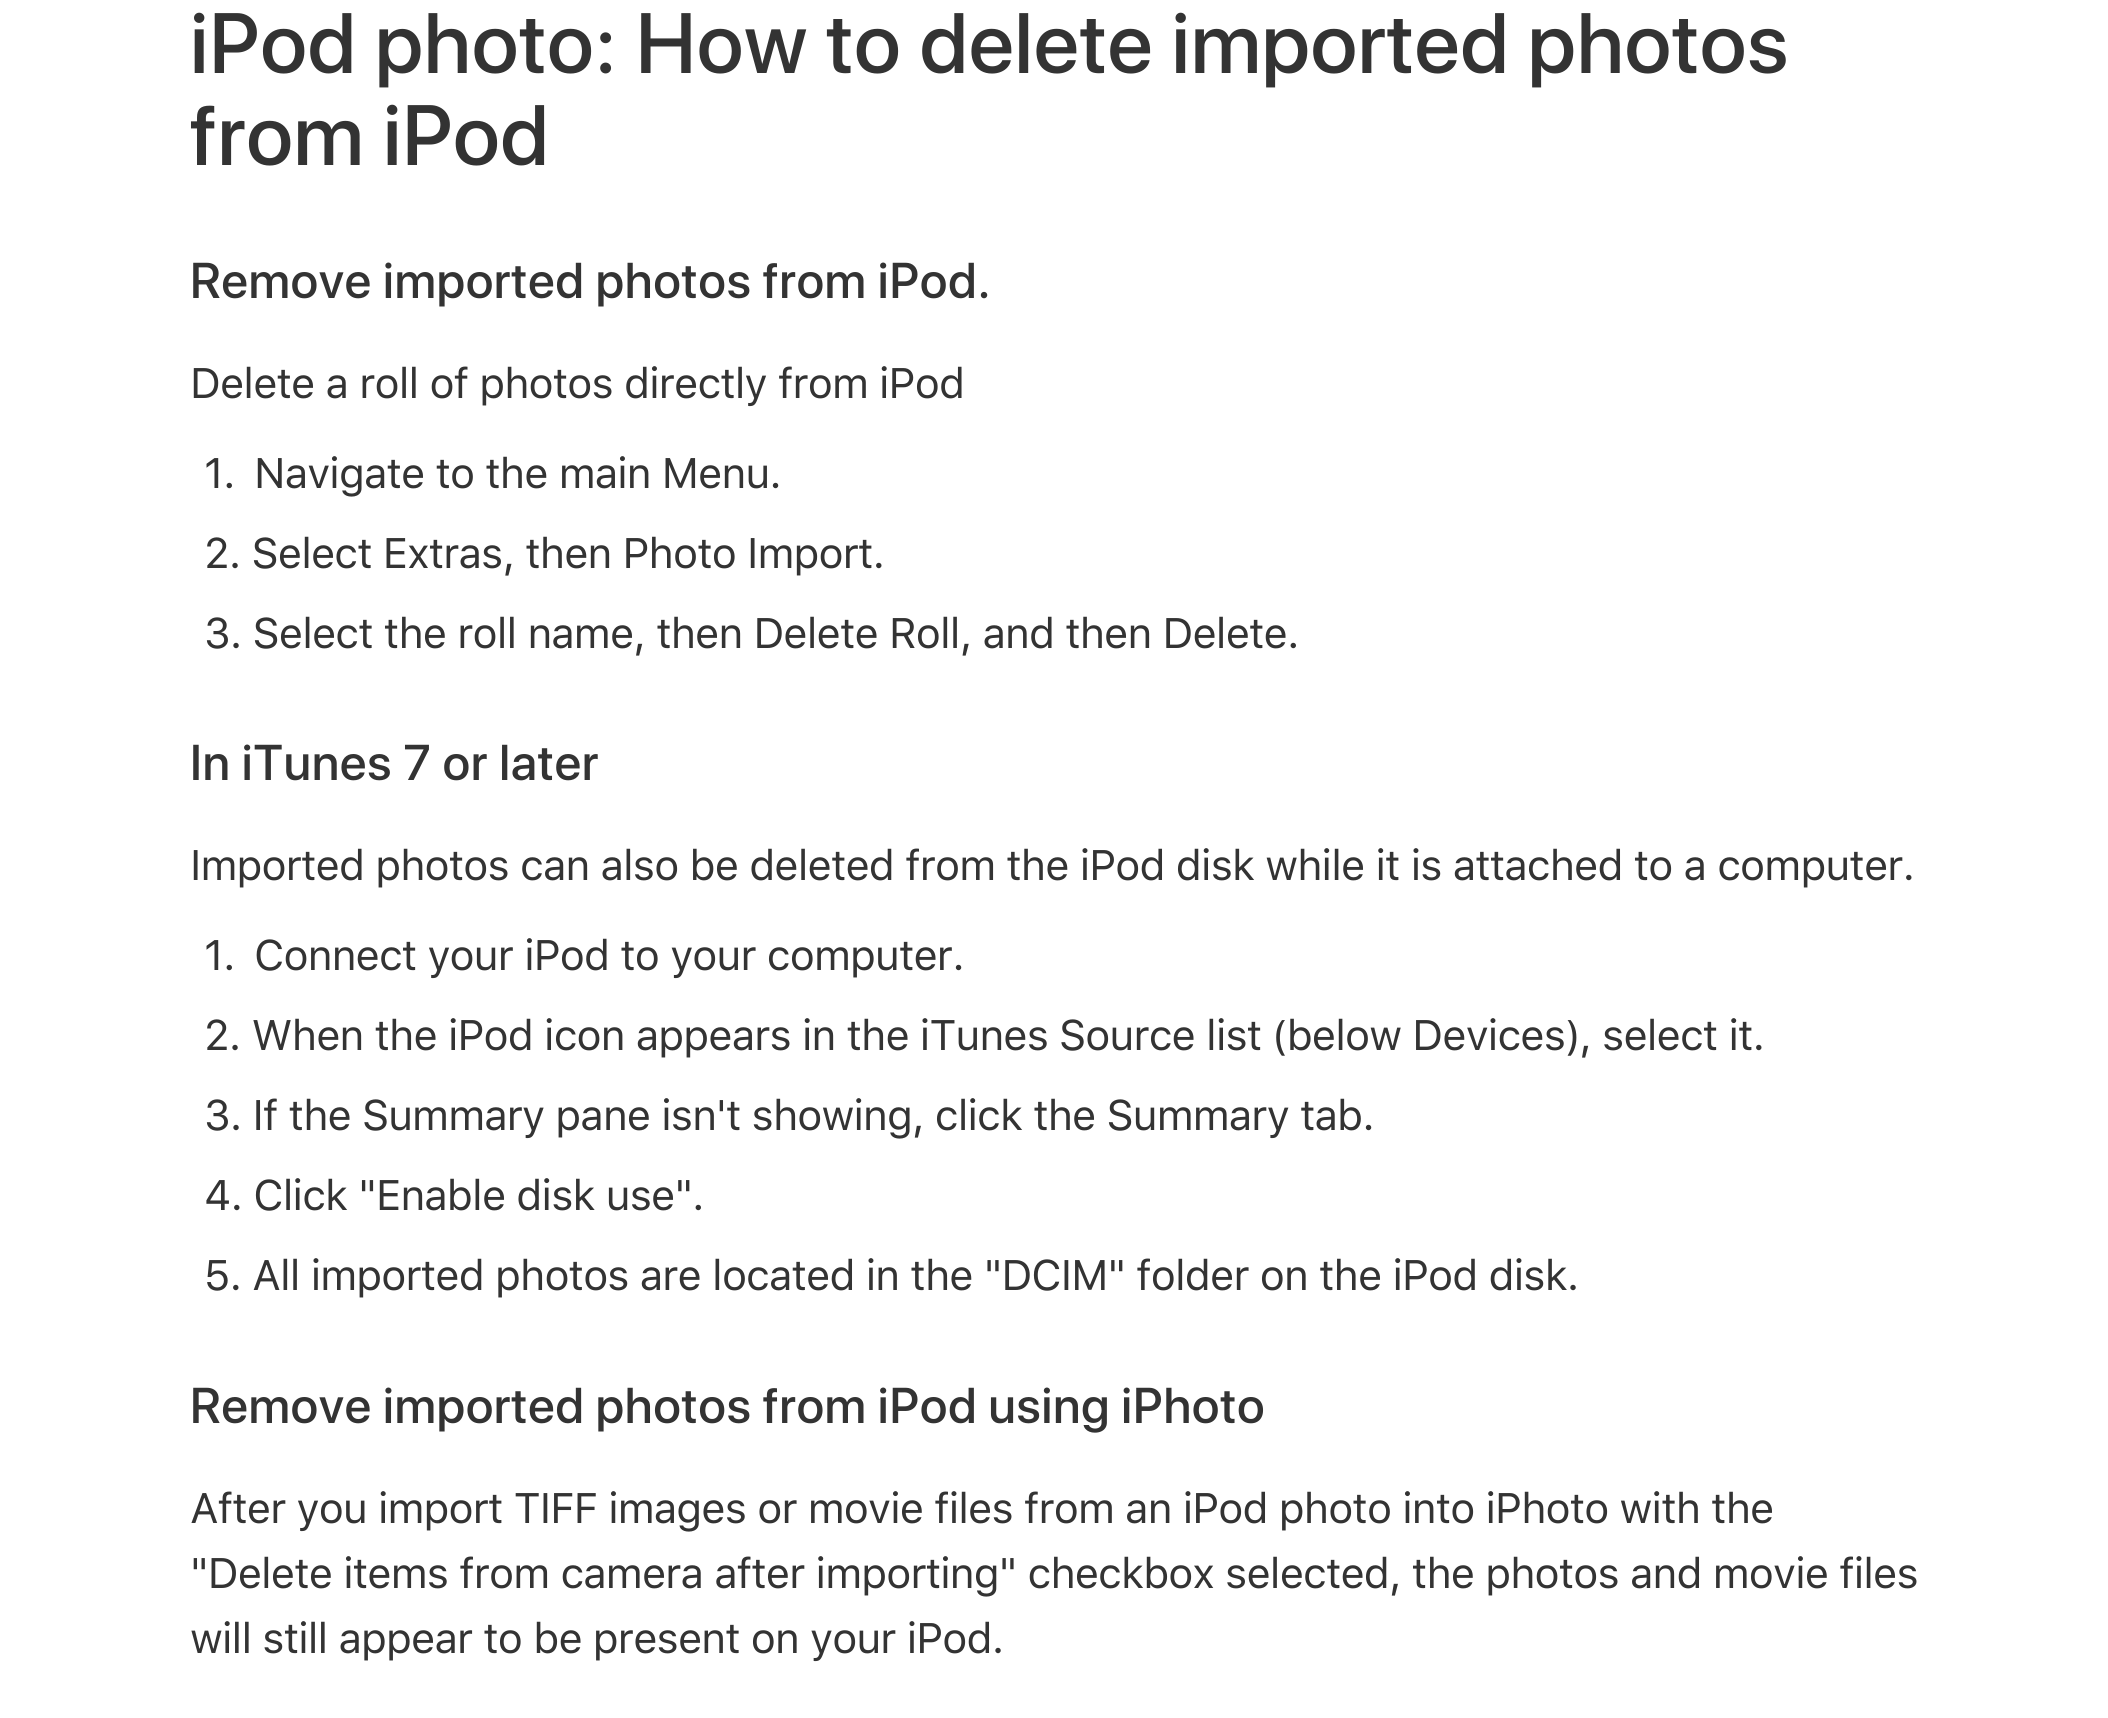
import math
import cairo

surface = cairo.ImageSurface(cairo.FORMAT_RGB24, 2108, 1718)
cr = cairo.Context(surface)
options = cairo.FontOptions()
options.set_hint_metrics(cairo.HINT_METRICS_OFF)
options.set_hint_style(cairo.HINT_STYLE_NONE)
cr.set_font_options(options)
cr.set_miter_limit(4)


def rgb(code):
    cr.set_source_rgb(*(v / 255 for v in bytes.fromhex(code[-6:])))


def tracked(x, y, s, letter, word):
    cr.move_to(x, y)
    for ch in s:
        cr.show_text(ch)
        cr.rel_move_to(letter + word * (ch == ' '), 0)


rgb("#ffffff")
cr.paint()
cr.select_font_face("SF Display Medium")
cr.set_font_size(85)
rgb("#333333")
tracked(190, 73, "iPod photo: How to delete imported photos", 0.85, 0)
tracked(190, 165, "from iPod", 0.85, 0)
cr.set_font_size(50)
tracked(190, 298, "Remove imported photos from iPod.", 0.85, 0)
cr.select_font_face("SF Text")
cr.set_font_size(42.5)
for x, y, s in [
    (190, 398, "Delete a roll of photos directly from iPod"),
    (204, 488, "1."),
    (254, 488, "Navigate to the main Menu."),
    (204, 568, "2. Select Extras, then Photo Import."),
    (204, 648, "3. Select the roll name, then Delete Roll, and then Delete."),
]:
    tracked(x, y, s, -0.9, 0)
cr.select_font_face("SF Display Medium")
cr.set_font_size(50)
tracked(190, 780, "In iTunes 7 or later", 0.85, 0)
cr.select_font_face("SF Text")
cr.set_font_size(42.5)
for x, y, s in [
    (190, 880, "Imported photos can also be deleted from the iPod disk while it is attached to a computer."),
    (204, 970, "1."),
    (254, 970, "Connect your iPod to your computer."),
    (204, 1050, "2. When the iPod icon appears in the iTunes Source list (below Devices), select it."),
    (204, 1130, "3. If the Summary pane isn't showing, click the Summary tab."),
    (204, 1210, "4. Click \"Enable disk use\"."),
    (204, 1290, "5. All imported photos are located in the \"DCIM\" folder on the iPod disk."),
]:
    tracked(x, y, s, -0.9, 0)
cr.select_font_face("SF Display Medium")
cr.set_font_size(50)
tracked(190, 1423, "Remove imported photos from iPod using iPhoto", 0.85, 0)
cr.select_font_face("SF Text")
cr.set_font_size(42.5)
for x, y, s in [
    (190, 1523, "After you import TIFF images or movie files from an iPod photo into iPhoto with the"),
    (190, 1588, "\"Delete items from camera after importing\" checkbox selected, the photos and movie files"),
    (190, 1653, "will still appear to be present on your iPod."),
]:
    tracked(x, y, s, -0.9, 0)
surface.write_to_png("page.png")
